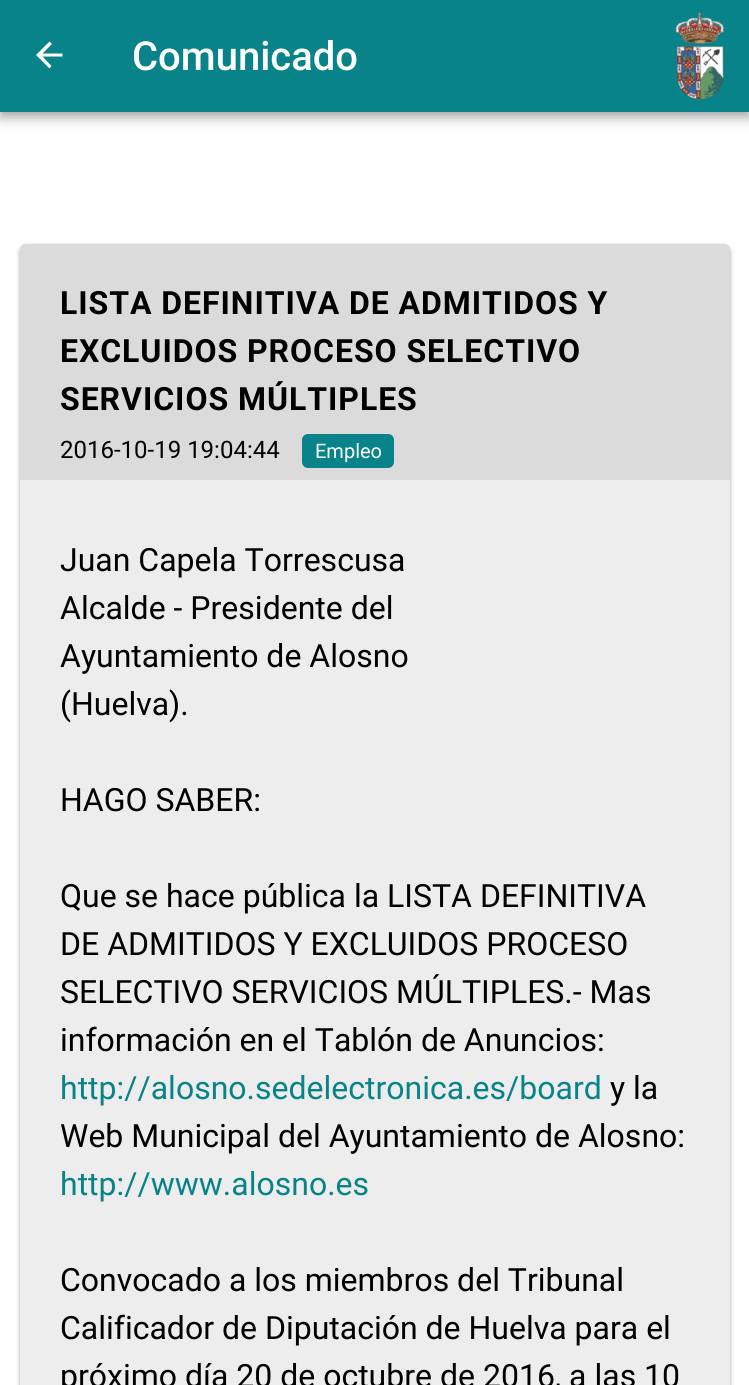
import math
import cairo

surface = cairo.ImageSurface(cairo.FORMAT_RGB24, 749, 1385)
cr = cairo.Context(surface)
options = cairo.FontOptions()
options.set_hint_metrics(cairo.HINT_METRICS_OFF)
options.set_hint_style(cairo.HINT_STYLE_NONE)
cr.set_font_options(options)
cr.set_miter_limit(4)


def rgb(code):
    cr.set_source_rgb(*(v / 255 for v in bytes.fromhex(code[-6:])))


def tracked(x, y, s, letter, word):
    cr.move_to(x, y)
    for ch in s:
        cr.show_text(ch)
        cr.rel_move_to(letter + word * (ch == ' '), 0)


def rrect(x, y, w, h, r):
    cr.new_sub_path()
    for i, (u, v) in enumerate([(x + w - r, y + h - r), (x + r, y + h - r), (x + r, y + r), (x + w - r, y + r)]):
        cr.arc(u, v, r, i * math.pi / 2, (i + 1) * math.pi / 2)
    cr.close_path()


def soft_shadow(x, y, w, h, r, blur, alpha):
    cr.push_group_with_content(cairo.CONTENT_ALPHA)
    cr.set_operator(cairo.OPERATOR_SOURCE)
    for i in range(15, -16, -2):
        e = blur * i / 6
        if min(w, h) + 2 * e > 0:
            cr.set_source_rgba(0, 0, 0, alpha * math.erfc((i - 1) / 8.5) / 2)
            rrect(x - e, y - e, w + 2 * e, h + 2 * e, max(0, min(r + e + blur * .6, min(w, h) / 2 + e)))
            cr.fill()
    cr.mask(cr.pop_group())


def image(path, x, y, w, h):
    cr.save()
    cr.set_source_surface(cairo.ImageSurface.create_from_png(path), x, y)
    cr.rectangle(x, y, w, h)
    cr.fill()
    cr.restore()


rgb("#ffffff")
cr.paint()
rgb("#000000")
soft_shadow(0, 2, 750, 112, 0, 10, 0.12)
soft_shadow(0, 8, 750, 112, 0, 5, 0.14)
soft_shadow(2, 6, 746, 108, 0, 4, 0.2)
rgb("#088389")
cr.rectangle(0, 0, 749, 112)
cr.fill()
rgb("#ffffff")
cr.new_path()
cr.move_to(62.5, 53.5)
cr.line_to(62.5, 56.5)
cr.line_to(42.5, 56.5)
cr.line_to(51.5, 66)
cr.line_to(49.5, 68.5)
cr.line_to(36, 55)
cr.line_to(49.5, 41.5)
cr.line_to(52, 44)
cr.line_to(42.5, 53.5)
cr.close_path()
cr.fill()
image("img/1.png", 675, 12, 50, 88)
rgb("#000000")
soft_shadow(20, 246, 710, 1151, 6, 2, 0.24)
soft_shadow(20, 246, 710, 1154, 6, 3, 0.12)
rgb("#ededed")
cr.new_path()
cr.move_to(26, 244)
cr.line_to(724, 244)
cr.curve_to(727.5, 244, 730, 246.5, 730, 250)
cr.line_to(730, 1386)
cr.line_to(20, 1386)
cr.line_to(20, 250)
cr.curve_to(20, 246.5, 22.5, 244, 26, 244)
cr.close_path()
cr.fill()
rgb("#dbdbdb")
cr.new_path()
cr.move_to(26, 244)
cr.line_to(724, 244)
cr.curve_to(727.5, 244, 730, 246.5, 730, 250)
cr.line_to(730, 480)
cr.line_to(20, 480)
cr.line_to(20, 250)
cr.curve_to(20, 246.5, 22.5, 244, 26, 244)
cr.close_path()
cr.fill()
rgb("#088389")
rrect(302, 434, 92, 34, 6)
cr.fill()
cr.select_font_face("Roboto Medium")
cr.set_font_size(40)
rgb("#ffffff")
cr.move_to(132, 70)
cr.show_text("Comunicado")
cr.select_font_face("Roboto", cairo.FONT_SLANT_NORMAL, cairo.FONT_WEIGHT_BOLD)
cr.set_font_size(32)
rgb("#000000")
for x, y, s in [
    (60, 314, "LISTA DEFINITIVA DE ADMITIDOS Y"),
    (60, 362, "EXCLUIDOS PROCESO SELECTIVO"),
    (60, 410, "SERVICIOS MÚLTIPLES"),
]:
    tracked(x, y, s, 0.95, 0)
cr.select_font_face("Roboto")
cr.set_font_size(24)
cr.move_to(60, 458)
cr.show_text("2016-10-19 19:04:44")
cr.set_font_size(20)
rgb("#ffffff")
cr.move_to(315, 458)
cr.show_text("Empleo")
cr.set_font_size(32)
rgb("#000000")
for x, y, s in [
    (60, 571, "Juan Capela Torrescusa"),
    (60, 619, "Alcalde - Presidente del"),
    (60, 667, "Ayuntamiento de Alosno"),
    (60, 715, "(Huelva)."),
    (60, 811, "HAGO SABER:"),
    (60, 907, "Que se hace pública la LISTA DEFINITIVA"),
    (60, 955, "DE ADMITIDOS Y EXCLUIDOS PROCESO"),
    (60, 1003, "SELECTIVO SERVICIOS MÚLTIPLES.- Mas"),
    (60, 1051, "información en el Tablón de Anuncios:"),
]:
    cr.move_to(x, y)
    cr.show_text(s)
rgb("#088389")
cr.move_to(60, 1099)
cr.show_text("http://alosno.sedelectronica.es/board")
rgb("#000000")
cr.move_to(610, 1099)
cr.show_text("y la")
cr.move_to(60, 1147)
cr.show_text("Web Municipal del Ayuntamiento de Alosno:")
rgb("#088389")
cr.move_to(60, 1195)
cr.show_text("http://www.alosno.es")
rgb("#000000")
for x, y, s in [
    (60, 1291, "Convocado a los miembros del Tribunal"),
    (60, 1339, "Calificador de Diputación de Huelva para el"),
    (60, 1387, "próximo día 20 de octubre de 2016, a las 10"),
]:
    cr.move_to(x, y)
    cr.show_text(s)
surface.write_to_png("page.png")
